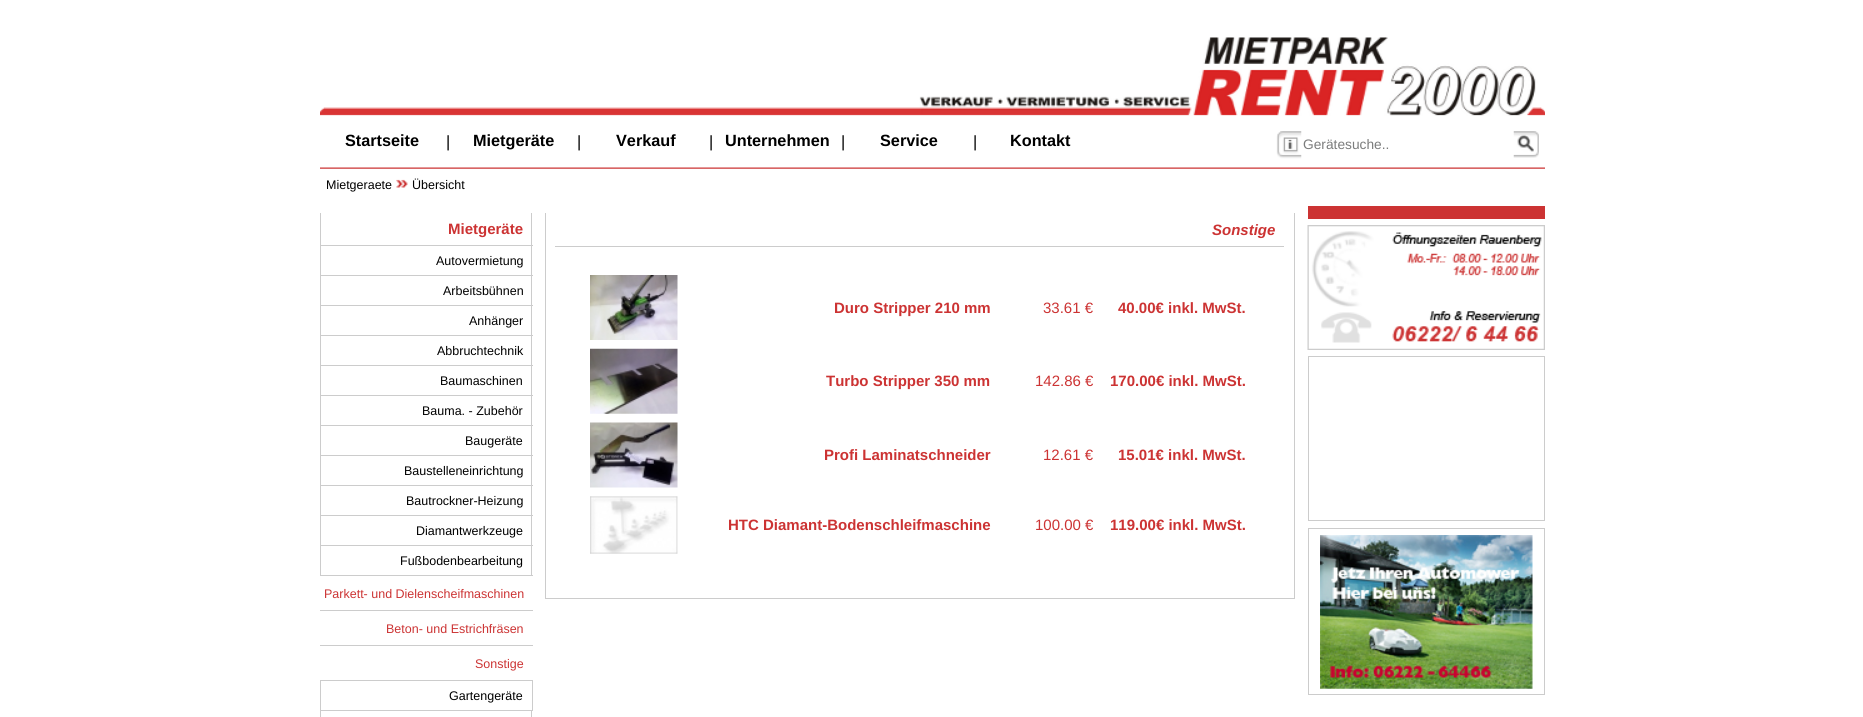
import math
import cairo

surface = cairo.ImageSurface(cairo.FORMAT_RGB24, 1863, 717)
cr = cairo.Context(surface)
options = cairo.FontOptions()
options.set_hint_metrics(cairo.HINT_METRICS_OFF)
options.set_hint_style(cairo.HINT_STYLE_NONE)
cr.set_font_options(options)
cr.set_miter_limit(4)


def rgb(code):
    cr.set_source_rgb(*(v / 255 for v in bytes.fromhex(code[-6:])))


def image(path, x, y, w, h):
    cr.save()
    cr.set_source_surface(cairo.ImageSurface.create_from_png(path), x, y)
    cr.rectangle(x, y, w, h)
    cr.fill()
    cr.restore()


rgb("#ffffff")
cr.paint()
image("img/1.png", 320, 37, 1225, 79)
image("img/2.png", 1276, 131, 26, 28)
image("img/3.png", 1513, 131, 26, 27)
image("img/4.png", 320, 167, 1225, 2)
image("img/5.png", 396, 179, 12, 9)
for x, y, w, h, color in [
    (531, 213, 1, 363, "#cccccc"),
    (320, 245, 213, 1, "#cccccc"),
    (320, 213, 1, 33, "#cccccc"),
    (320, 275, 213, 1, "#cccccc"),
    (320, 246, 1, 30, "#cccccc"),
    (320, 305, 213, 1, "#cccccc"),
    (320, 276, 1, 30, "#cccccc"),
    (320, 335, 213, 1, "#cccccc"),
    (320, 306, 1, 30, "#cccccc"),
    (320, 365, 213, 1, "#cccccc"),
    (320, 336, 1, 30, "#cccccc"),
    (320, 395, 213, 1, "#cccccc"),
    (320, 366, 1, 30, "#cccccc"),
    (320, 425, 213, 1, "#cccccc"),
    (320, 396, 1, 30, "#cccccc"),
    (320, 455, 213, 1, "#cccccc"),
    (320, 426, 1, 30, "#cccccc"),
    (320, 485, 213, 1, "#cccccc"),
    (320, 456, 1, 30, "#cccccc"),
    (320, 515, 213, 1, "#cccccc"),
    (320, 486, 1, 30, "#cccccc"),
    (320, 545, 213, 1, "#cccccc"),
    (320, 516, 1, 30, "#cccccc"),
    (320, 575, 213, 1, "#cccccc"),
    (320, 546, 1, 30, "#cccccc"),
    (320, 610, 213, 1, "#cccccc"),
    (320, 645, 213, 1, "#cccccc"),
]:
    rgb(color)
    cr.rectangle(x, y, w, h)
    cr.fill()
cr.rectangle(320.5, 680.5, 212, 30)
cr.set_line_width(1)
cr.stroke()
for x, y, w, h, color in [
    (531, 711, 1, 6, "#cccccc"),
    (320, 711, 1, 6, "#cccccc"),
    (1294, 213, 1, 386, "#cccccc"),
    (545, 213, 1, 370, "#cccccc"),
    (555, 246, 729, 1, "#cccccc"),
]:
    rgb(color)
    cr.rectangle(x, y, w, h)
    cr.fill()
image("img/6.png", 590, 275, 88, 65)
image("img/7.png", 590, 348, 88, 66)
image("img/8.png", 590, 422, 88, 66)
image("img/9.png", 590, 496, 88, 58)
for x, y, w, h, color in [
    (545, 598, 750, 1, "#cccccc"),
    (545, 583, 1, 16, "#cccccc"),
    (1308, 206, 237, 13, "#cc3333"),
]:
    rgb(color)
    cr.rectangle(x, y, w, h)
    cr.fill()
image("img/10.png", 1307, 225, 238, 125)
cr.rectangle(1308.5, 356.5, 236, 164)
rgb("#cccccc")
cr.stroke()
cr.rectangle(1308.5, 528.5, 236, 166)
cr.stroke()
image("img/11.png", 1320, 535, 213, 154)
cr.select_font_face("Liberation Sans", cairo.FONT_SLANT_NORMAL, cairo.FONT_WEIGHT_BOLD)
cr.set_font_size(16.25)
rgb("#000000")
cr.move_to(345, 146)
cr.show_text("Startseite")
cr.select_font_face("Liberation Sans")
cr.move_to(446, 147)
cr.show_text("|")
cr.select_font_face("Liberation Sans", cairo.FONT_SLANT_NORMAL, cairo.FONT_WEIGHT_BOLD)
cr.move_to(473, 146)
cr.show_text("Mietgeräte")
cr.select_font_face("Liberation Sans")
cr.move_to(577, 147)
cr.show_text("|")
cr.select_font_face("Liberation Sans", cairo.FONT_SLANT_NORMAL, cairo.FONT_WEIGHT_BOLD)
cr.move_to(616, 146)
cr.show_text("Verkauf")
cr.select_font_face("Liberation Sans")
cr.move_to(709, 147)
cr.show_text("|")
cr.select_font_face("Liberation Sans", cairo.FONT_SLANT_NORMAL, cairo.FONT_WEIGHT_BOLD)
cr.move_to(725, 146)
cr.show_text("Unternehmen")
cr.select_font_face("Liberation Sans")
cr.move_to(841, 147)
cr.show_text("|")
cr.select_font_face("Liberation Sans", cairo.FONT_SLANT_NORMAL, cairo.FONT_WEIGHT_BOLD)
cr.move_to(880, 146)
cr.show_text("Service")
cr.select_font_face("Liberation Sans")
cr.move_to(973, 147)
cr.show_text("|")
cr.select_font_face("Liberation Sans", cairo.FONT_SLANT_NORMAL, cairo.FONT_WEIGHT_BOLD)
cr.move_to(1010, 146)
cr.show_text("Kontakt")
cr.select_font_face("Liberation Sans")
cr.set_font_size(13.75)
rgb("#7b7c7c")
cr.move_to(1303, 149)
cr.show_text("Gerätesuche..")
cr.set_font_size(12.5)
rgb("#000000")
cr.move_to(326, 189)
cr.show_text("Mietgeraete")
cr.move_to(412, 189)
cr.show_text("Übersicht")
cr.select_font_face("Liberation Sans", cairo.FONT_SLANT_NORMAL, cairo.FONT_WEIGHT_BOLD)
cr.set_font_size(15)
rgb("#cc3333")
cr.move_to(448, 234)
cr.show_text("Mietgeräte")
cr.select_font_face("Liberation Sans")
cr.set_font_size(12.5)
rgb("#000000")
for x, y, s in [
    (436, 265, "Autovermietung"),
    (443, 295, "Arbeitsbühnen"),
    (469, 325, "Anhänger"),
    (437, 355, "Abbruchtechnik"),
    (440, 385, "Baumaschinen"),
    (422, 415, "Bauma. - Zubehör"),
    (465, 445, "Baugeräte"),
    (404, 475, "Baustelleneinrichtung"),
    (406, 505, "Bautrockner-Heizung"),
    (416, 535, "Diamantwerkzeuge"),
    (400, 565, "Fußbodenbearbeitung"),
]:
    cr.move_to(x, y)
    cr.show_text(s)
rgb("#cc3333")
for x, y, s in [
    (324, 598, "Parkett- und Dielenscheifmaschinen"),
    (386, 633, "Beton- und Estrichfräsen"),
    (475, 668, "Sonstige"),
]:
    cr.move_to(x, y)
    cr.show_text(s)
rgb("#000000")
cr.move_to(449, 700)
cr.show_text("Gartengeräte")
cr.select_font_face("Liberation Sans", cairo.FONT_SLANT_ITALIC, cairo.FONT_WEIGHT_BOLD)
cr.set_font_size(15)
rgb("#cc3333")
cr.move_to(1212, 235)
cr.show_text("Sonstige")
cr.select_font_face("Liberation Sans", cairo.FONT_SLANT_NORMAL, cairo.FONT_WEIGHT_BOLD)
cr.move_to(834, 313)
cr.show_text("Duro Stripper 210 mm")
cr.select_font_face("Liberation Sans")
cr.move_to(1043, 313)
cr.show_text("33.61 €")
cr.select_font_face("Liberation Sans", cairo.FONT_SLANT_NORMAL, cairo.FONT_WEIGHT_BOLD)
cr.move_to(1118, 313)
cr.show_text("40.00€ inkl. MwSt.")
cr.move_to(826, 386)
cr.show_text("Turbo Stripper 350 mm")
cr.select_font_face("Liberation Sans")
cr.move_to(1035, 386)
cr.show_text("142.86 €")
cr.select_font_face("Liberation Sans", cairo.FONT_SLANT_NORMAL, cairo.FONT_WEIGHT_BOLD)
cr.move_to(1110, 386)
cr.show_text("170.00€ inkl. MwSt.")
cr.move_to(824, 460)
cr.show_text("Profi Laminatschneider")
cr.select_font_face("Liberation Sans")
cr.move_to(1043, 460)
cr.show_text("12.61 €")
cr.select_font_face("Liberation Sans", cairo.FONT_SLANT_NORMAL, cairo.FONT_WEIGHT_BOLD)
cr.move_to(1118, 460)
cr.show_text("15.01€ inkl. MwSt.")
cr.move_to(728, 530)
cr.show_text("HTC Diamant-Bodenschleifmaschine")
cr.select_font_face("Liberation Sans")
cr.move_to(1035, 530)
cr.show_text("100.00 €")
cr.select_font_face("Liberation Sans", cairo.FONT_SLANT_NORMAL, cairo.FONT_WEIGHT_BOLD)
cr.move_to(1110, 530)
cr.show_text("119.00€ inkl. MwSt.")
surface.write_to_png("page.png")
